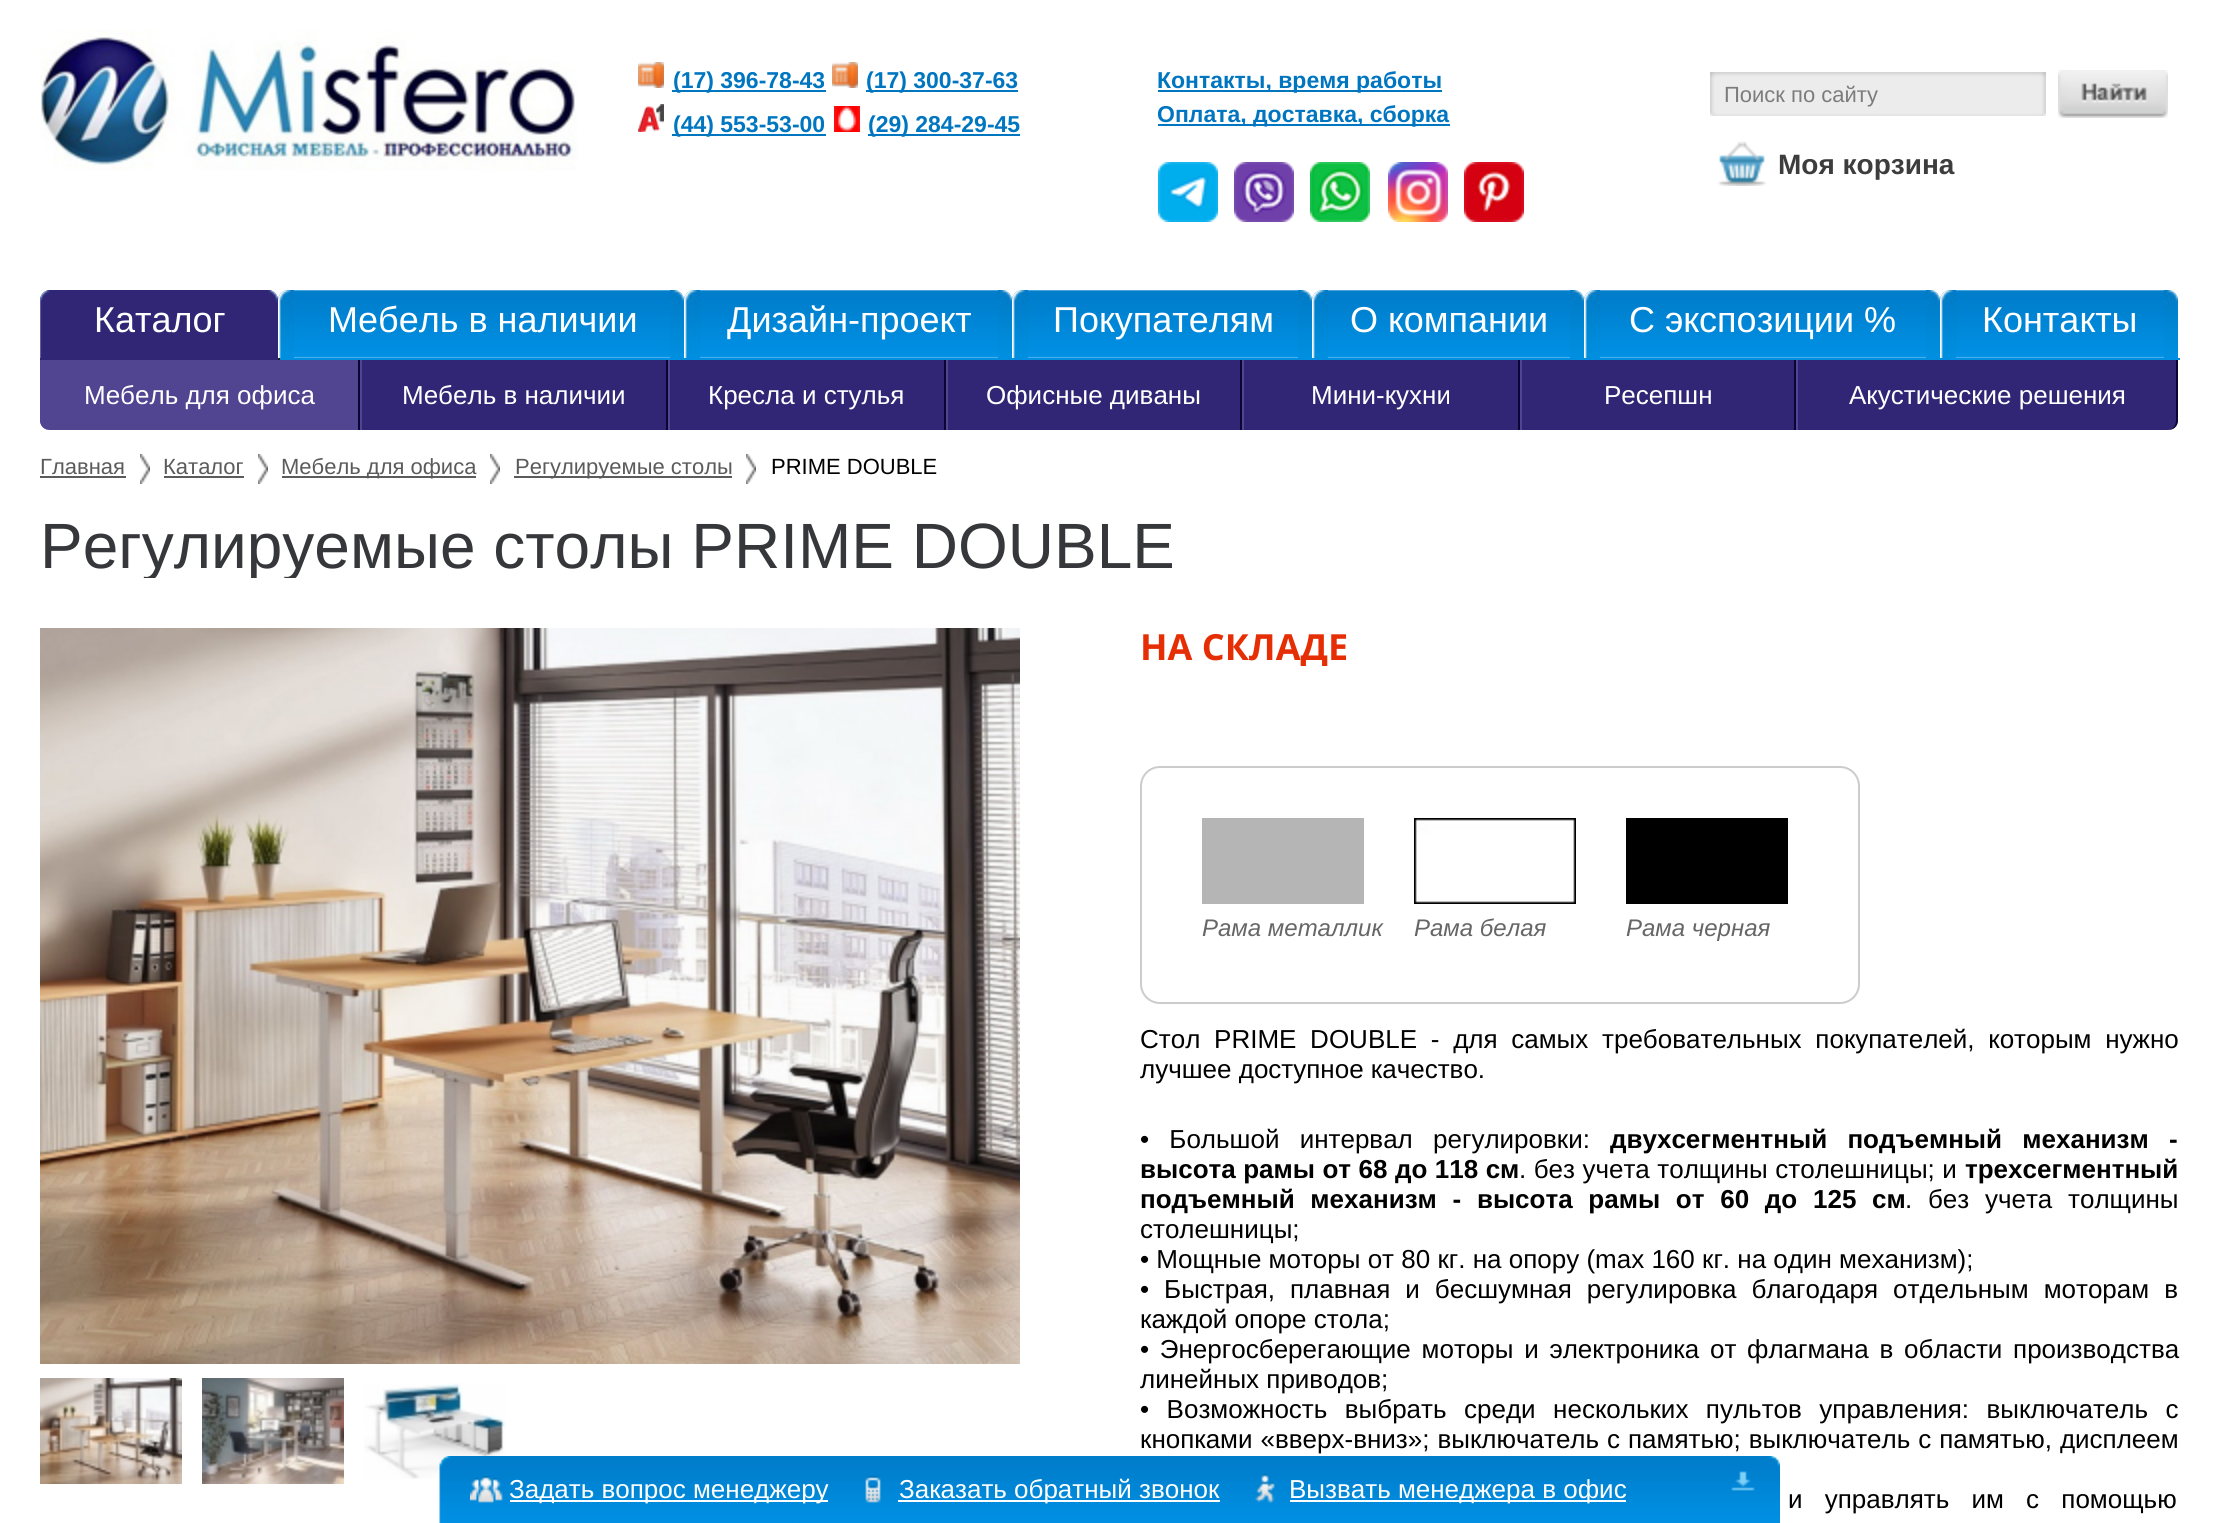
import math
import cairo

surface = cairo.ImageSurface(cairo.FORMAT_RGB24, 2217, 1523)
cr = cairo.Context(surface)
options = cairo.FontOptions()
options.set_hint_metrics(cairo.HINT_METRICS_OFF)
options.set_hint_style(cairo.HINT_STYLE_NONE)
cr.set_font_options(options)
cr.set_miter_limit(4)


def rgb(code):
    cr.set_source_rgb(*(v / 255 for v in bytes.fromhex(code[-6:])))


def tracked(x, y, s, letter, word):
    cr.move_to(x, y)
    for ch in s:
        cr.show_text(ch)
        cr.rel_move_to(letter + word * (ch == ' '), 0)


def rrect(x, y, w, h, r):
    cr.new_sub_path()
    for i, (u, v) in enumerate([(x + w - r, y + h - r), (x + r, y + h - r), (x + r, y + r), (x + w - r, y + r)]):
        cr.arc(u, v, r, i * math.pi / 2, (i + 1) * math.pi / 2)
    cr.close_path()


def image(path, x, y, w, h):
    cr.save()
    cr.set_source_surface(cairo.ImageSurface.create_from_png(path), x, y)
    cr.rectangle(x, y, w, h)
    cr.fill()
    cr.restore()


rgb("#ffffff")
cr.paint()
image("img/1.png", 40, 30, 538, 141)
image("img/2.png", 638, 62, 26, 26)
rgb("#0075c0")
cr.rectangle(672, 90, 154, 2)
cr.fill()
image("img/2.png", 832, 62, 26, 26)
cr.rectangle(866, 90, 152, 2)
cr.fill()
image("img/3.png", 638, 104, 26, 28)
cr.rectangle(672, 134, 154, 2)
cr.fill()
image("img/4.png", 834, 106, 26, 26)
for x, y, w, h, color in [
    (868, 134, 152, 2, "#0075c0"),
    (1158, 90, 284, 2, "#0075c0"),
    (1158, 124, 292, 2, "#0075c0"),
]:
    rgb(color)
    cr.rectangle(x, y, w, h)
    cr.fill()
image("img/5.png", 1158, 162, 60, 60)
image("img/6.png", 1234, 162, 60, 60)
image("img/7.png", 1310, 162, 60, 60)
image("img/8.png", 1388, 162, 60, 60)
image("img/9.png", 1464, 162, 60, 60)
image("img/10.png", 1710, 72, 336, 44)
image("img/11.png", 2058, 70, 110, 48)
image("img/12.png", 1718, 141, 48, 45)
rgb("#008fe0")
cr.rectangle(278, 358, 1902, 2)
cr.fill()
rgb("#222222")
cr.rectangle(278, 358, 2, 2)
cr.fill()
rgb("#312675")
cr.new_path()
cr.move_to(50, 290)
cr.line_to(268, 290)
cr.curve_to(273.5, 290, 278, 294.5, 278, 300)
cr.line_to(278, 360)
cr.line_to(40, 360)
cr.line_to(40, 300)
cr.curve_to(40, 294.5, 44.5, 290, 50, 290)
cr.close_path()
cr.fill()
image("img/13.png", 40, 290, 10, 68)
image("img/14.png", 268, 290, 10, 12)
image("img/15.png", 278, 290, 406, 68)
image("img/16.png", 278, 290, 16, 68)
image("img/17.png", 670, 290, 14, 68)
image("img/18.png", 684, 290, 328, 68)
image("img/19.png", 684, 290, 16, 68)
image("img/17.png", 998, 290, 14, 68)
image("img/20.png", 1012, 290, 300, 68)
image("img/21.png", 1012, 290, 16, 68)
image("img/17.png", 1298, 290, 14, 68)
image("img/22.png", 1312, 290, 272, 68)
image("img/19.png", 1312, 290, 16, 68)
image("img/17.png", 1570, 290, 14, 68)
image("img/23.png", 1584, 290, 356, 68)
image("img/16.png", 1584, 290, 16, 68)
image("img/17.png", 1926, 290, 14, 68)
image("img/24.png", 1940, 290, 238, 68)
image("img/16.png", 1940, 290, 16, 68)
image("img/17.png", 2164, 290, 14, 68)
rgb("#514491")
cr.new_path()
cr.move_to(40, 360)
cr.line_to(360, 360)
cr.line_to(360, 430)
cr.line_to(50, 430)
cr.curve_to(44.5, 430, 40, 425.5, 40, 420)
cr.close_path()
cr.fill()
rgb("#090636")
cr.rectangle(358, 360, 2, 70)
cr.fill()
rgb("#514491")
cr.new_path()
cr.move_to(40, 360)
cr.line_to(40, 420)
cr.curve_to(40, 426, 44, 430, 50, 430)
cr.curve_to(46, 430, 42, 426, 42, 420)
cr.line_to(42, 360)
cr.close_path()
cr.fill()
for x, y, w, h, color in [
    (362, 360, 304, 70, "#312675"),
    (666, 360, 2, 70, "#090636"),
    (360, 360, 2, 70, "#514491"),
    (670, 360, 274, 70, "#312675"),
    (944, 360, 2, 70, "#090636"),
    (668, 360, 2, 70, "#514491"),
    (948, 360, 292, 70, "#312675"),
    (1240, 360, 2, 70, "#090636"),
    (946, 360, 2, 70, "#514491"),
    (1244, 360, 274, 70, "#312675"),
    (1518, 360, 2, 70, "#090636"),
    (1242, 360, 2, 70, "#514491"),
    (1522, 360, 272, 70, "#312675"),
    (1794, 360, 2, 70, "#090636"),
    (1520, 360, 2, 70, "#514491"),
]:
    rgb(color)
    cr.rectangle(x, y, w, h)
    cr.fill()
rgb("#312675")
cr.new_path()
cr.move_to(1796, 360)
cr.line_to(2178, 360)
cr.line_to(2178, 420)
cr.curve_to(2178, 425.5, 2173.5, 430, 2168, 430)
cr.line_to(1796, 430)
cr.close_path()
cr.fill()
rgb("#090636")
cr.new_path()
cr.move_to(2178, 360)
cr.line_to(2176, 360)
cr.line_to(2176, 420)
cr.curve_to(2176, 426, 2172, 430, 2168, 430)
cr.curve_to(2174, 430, 2178, 426, 2178, 420)
cr.close_path()
cr.fill()
rgb("#514491")
cr.rectangle(1796, 360, 2, 70)
cr.fill()
image("img/25.png", 140, 454, 10, 30)
rgb("#5b5b5b")
cr.rectangle(40, 476, 86, 2)
cr.fill()
image("img/25.png", 258, 454, 10, 30)
cr.rectangle(164, 476, 80, 2)
cr.fill()
image("img/25.png", 490, 454, 10, 30)
cr.rectangle(282, 476, 194, 2)
cr.fill()
image("img/25.png", 746, 454, 10, 30)
cr.rectangle(514, 476, 218, 2)
cr.fill()
image("img/26.png", 40, 628, 980, 736)
image("img/27.png", 40, 1378, 142, 106)
image("img/28.png", 202, 1378, 142, 106)
image("img/29.png", 364, 1383, 142, 96)
rrect(1141, 767, 718, 236, 19)
rgb("#cccccc")
cr.stroke()
rgb("#b5b5b5")
cr.rectangle(1202, 818, 162, 86)
cr.fill()
image("img/30.png", 1414, 818, 162, 86)
rgb("#000000")
cr.rectangle(1626, 818, 162, 86)
cr.fill()
image("img/31.png", 439, 1456, 1341, 67)
image("img/32.png", 439, 1456, 1341, 67)
image("img/33.png", 470, 1476, 34, 27)
rgb("#ffffff")
cr.rectangle(510, 1500, 318, 2)
cr.fill()
image("img/34.png", 865, 1475, 16, 28)
cr.rectangle(898, 1500, 322, 2)
cr.fill()
image("img/35.png", 1255, 1473, 20, 30)
cr.rectangle(1290, 1500, 336, 2)
cr.fill()
cr.select_font_face("Liberation Sans", cairo.FONT_SLANT_NORMAL, cairo.FONT_WEIGHT_BOLD)
cr.set_font_size(23)
rgb("#0075c0")
for x, y, s in [
    (673, 88, "(17) 396-78-43"),
    (866, 88, "(17) 300-37-63"),
    (673, 132, "(44) 553-53-00"),
    (868, 132, "(29) 284-29-45"),
    (1157, 88, "Контакты, время работы"),
    (1157, 122, "Оплата, доставка, сборка"),
]:
    cr.move_to(x, y)
    cr.show_text(s)
cr.select_font_face("Liberation Sans")
cr.set_font_size(22)
rgb("#7c7c7c")
cr.move_to(1724, 102)
cr.show_text("Поиск по сайту")
cr.select_font_face("Liberation Sans", cairo.FONT_SLANT_NORMAL, cairo.FONT_WEIGHT_BOLD)
cr.set_font_size(28)
rgb("#3d3d3d")
cr.move_to(1778, 174)
cr.show_text("Моя корзина")
cr.select_font_face("Liberation Sans")
cr.set_font_size(36)
rgb("#ffffff")
for x, y, s in [
    (94, 332, "Каталог"),
    (328, 332, "Мебель в наличии"),
    (727, 332, "Дизайн-проект"),
    (1053, 332, "Покупателям"),
    (1350, 332, "О компании"),
    (1629, 332, "С экспозиции %"),
    (1982, 332, "Контакты"),
]:
    cr.move_to(x, y)
    cr.show_text(s)
cr.set_font_size(26)
for x, y, s in [
    (84, 404, "Мебель для офиса"),
    (402, 404, "Мебель в наличии"),
    (708, 404, "Кресла и стулья"),
    (986, 404, "Офисные диваны"),
    (1311, 404, "Мини-кухни"),
    (1604, 404, "Ресепшн"),
    (1849, 404, "Акустические решения"),
]:
    cr.move_to(x, y)
    cr.show_text(s)
cr.set_font_size(22)
rgb("#5b5b5b")
for x, y, s in [
    (40, 474, "Главная"),
    (163, 474, "Каталог"),
    (281, 474, "Мебель для офиса"),
    (515, 474, "Регулируемые столы"),
]:
    cr.move_to(x, y)
    cr.show_text(s)
rgb("#000000")
cr.move_to(771, 474)
cr.show_text("PRIME DOUBLE")
cr.save()
cr.rectangle(40, 514, 2138, 64)
cr.clip()
cr.set_font_size(64)
rgb("#36373a")
cr.move_to(40, 568)
cr.show_text("Регулируемые столы PRIME DOUBLE")
cr.restore()
cr.save()
cr.rectangle(1140, 628, 208, 38)
cr.clip()
cr.select_font_face("Open Sans", cairo.FONT_SLANT_NORMAL, cairo.FONT_WEIGHT_BOLD)
cr.set_font_size(36)
rgb("#e62e04")
cr.move_to(1140, 660)
cr.show_text("НА СКЛАДЕ")
cr.restore()
cr.select_font_face("Liberation Sans", cairo.FONT_SLANT_ITALIC)
cr.set_font_size(24)
rgb("#666666")
for x, y, s in [
    (1202, 936, "Рама металлик"),
    (1414, 936, "Рама белая"),
    (1626, 936, "Рама черная"),
]:
    cr.move_to(x, y)
    cr.show_text(s)
cr.select_font_face("Liberation Sans")
cr.set_font_size(26)
rgb("#000000")
tracked(1140, 1048, "Cтол PRIME DOUBLE - для самых требовательных покупателей, которым нужно", 0, 6.5)
cr.move_to(1140, 1078)
cr.show_text("лучшее доступное качество.")
tracked(1140, 1148, "• Большой интервал регулировки:", 0, 13)
cr.select_font_face("Liberation Sans", cairo.FONT_SLANT_NORMAL, cairo.FONT_WEIGHT_BOLD)
tracked(1610, 1148, "двухсегментный подъемный механизм -", 0, 13)
tracked(1140, 1178, "высота рамы от 68 до 118 см", 0, 0.25)
cr.select_font_face("Liberation Sans")
tracked(1519, 1178, ". без учета толщины столешницы; и", 0, 0.25)
cr.select_font_face("Liberation Sans", cairo.FONT_SLANT_NORMAL, cairo.FONT_WEIGHT_BOLD)
cr.move_to(1965, 1178)
cr.show_text("трехсегментный")
tracked(1140, 1208, "подъемный механизм - высота рамы от 60 до 125 см", 0, 8.5)
cr.select_font_face("Liberation Sans")
tracked(1905, 1208, ". без учета толщины", 0, 8.5)
cr.move_to(1140, 1238)
cr.show_text("столешницы;")
cr.move_to(1140, 1268)
cr.show_text("• Мощные моторы от 80 кг. на опору (max 160 кг. на один механизм);")
tracked(1140, 1298, "• Быстрая, плавная и бесшумная регулировка благодаря отдельным моторам в", 0, 7.75)
cr.move_to(1140, 1328)
cr.show_text("каждой опоре стола;")
tracked(1140, 1358, "• Энергосберегающие моторы и электроника от флагмана в области производства", 0, 3.5)
cr.move_to(1140, 1388)
cr.show_text("линейных приводов;")
tracked(1140, 1418, "• Возможность выбрать среди нескольких пультов управления: выключатель с", 0, 10.25)
tracked(1140, 1448, "кнопками «вверх-вниз»; выключатель с памятью; выключатель с памятью, дисплеем", 0, 0.75)
tracked(1788, 1508, "и управлять им с помощью", 0, 15)
rgb("#ffffff")
for x, y, s in [
    (509, 1498, "Задать вопрос менеджеру"),
    (899, 1498, "Заказать обратный звонок"),
    (1289, 1498, "Вызвать менеджера в офис"),
]:
    cr.move_to(x, y)
    cr.show_text(s)
surface.write_to_png("page.png")
